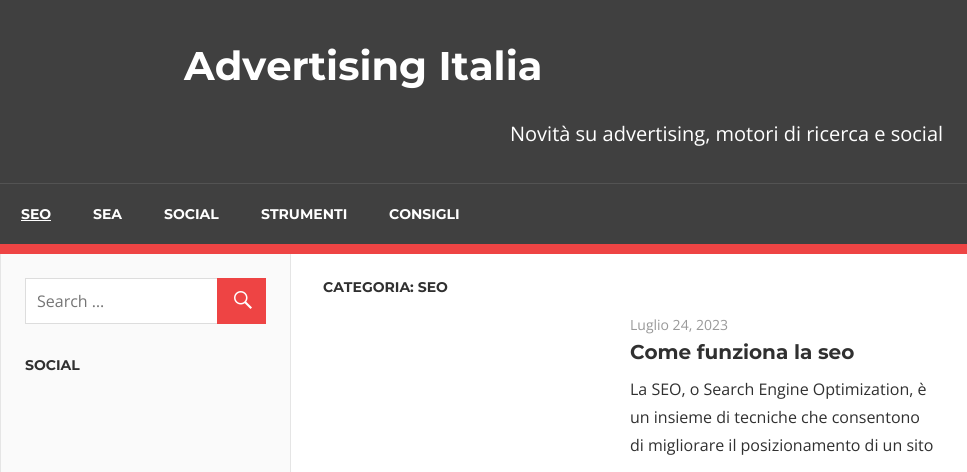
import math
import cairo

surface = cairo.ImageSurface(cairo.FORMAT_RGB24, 967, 472)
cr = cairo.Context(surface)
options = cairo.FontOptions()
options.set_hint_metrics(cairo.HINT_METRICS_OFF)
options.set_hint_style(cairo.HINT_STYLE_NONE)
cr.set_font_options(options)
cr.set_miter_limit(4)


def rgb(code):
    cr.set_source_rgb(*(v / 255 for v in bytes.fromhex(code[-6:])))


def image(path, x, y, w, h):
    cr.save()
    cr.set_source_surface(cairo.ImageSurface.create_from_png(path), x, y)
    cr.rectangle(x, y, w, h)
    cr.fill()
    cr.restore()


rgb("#404040")
cr.paint()
for x, y, w, h, color in [
    (0, 244, 967, 10, "#ee4444"),
    (0, 183, 967, 1, "#535353"),
    (21, 220, 30, 1, "#ffffff"),
    (1, 254, 289, 218, "#fafafa"),
    (0, 254, 1, 218, "#e5e5e5"),
    (26, 279, 191, 44, "#ffffff"),
    (291, 254, 676, 218, "#ffffff"),
    (290, 254, 1, 218, "#e5e5e5"),
]:
    rgb(color)
    cr.rectangle(x, y, w, h)
    cr.fill()
cr.select_font_face("Montserrat", cairo.FONT_SLANT_NORMAL, cairo.FONT_WEIGHT_BOLD)
cr.set_font_size(40)
rgb("#ffffff")
cr.move_to(184, 80)
cr.show_text("Advertising Italia")
cr.select_font_face("Open Sans")
cr.set_font_size(20)
cr.move_to(510, 141)
cr.show_text("Novità su advertising, motori di ricerca e social")
cr.select_font_face("Montserrat", cairo.FONT_SLANT_NORMAL, cairo.FONT_WEIGHT_BOLD)
cr.set_font_size(14)
for x, y, s in [
    (21, 219, "SEO"),
    (93, 219, "SEA"),
    (164, 219, "SOCIAL"),
    (261, 219, "STRUMENTI"),
    (389, 219, "CONSIGLI"),
]:
    cr.move_to(x, y)
    cr.show_text(s)
rgb("#303030")
cr.move_to(25, 370)
cr.show_text("SOCIAL")
cr.move_to(323, 292)
cr.show_text("CATEGORIA: SEO")
cr.save()
cr.rectangle(25, 278, 241, 46)
cr.clip()
cr.rectangle(25.5, 278.5, 299, 45)
rgb("#dddddd")
cr.set_line_width(1)
cr.stroke()
cr.restore()
rgb("#ee4444")
cr.rectangle(217, 278, 49, 46)
cr.fill()
image("img/1.png", 234, 291, 18, 18)
cr.select_font_face("Open Sans")
cr.set_font_size(16)
rgb("#757575")
cr.move_to(37, 307)
cr.show_text("Search …")
cr.set_font_size(14)
rgb("#999999")
cr.move_to(630, 330)
cr.show_text("Luglio 24, 2023")
cr.select_font_face("Montserrat", cairo.FONT_SLANT_NORMAL, cairo.FONT_WEIGHT_BOLD)
cr.set_font_size(20)
rgb("#303030")
cr.move_to(630, 359)
cr.show_text("Come funziona la seo")
cr.select_font_face("Open Sans")
cr.set_font_size(16)
for x, y, s in [
    (630, 395, "La SEO, o Search Engine Optimization, è"),
    (630, 423, "un insieme di tecniche che consentono"),
    (630, 451, "di migliorare il posizionamento di un sito"),
]:
    cr.move_to(x, y)
    cr.show_text(s)
surface.write_to_png("page.png")
